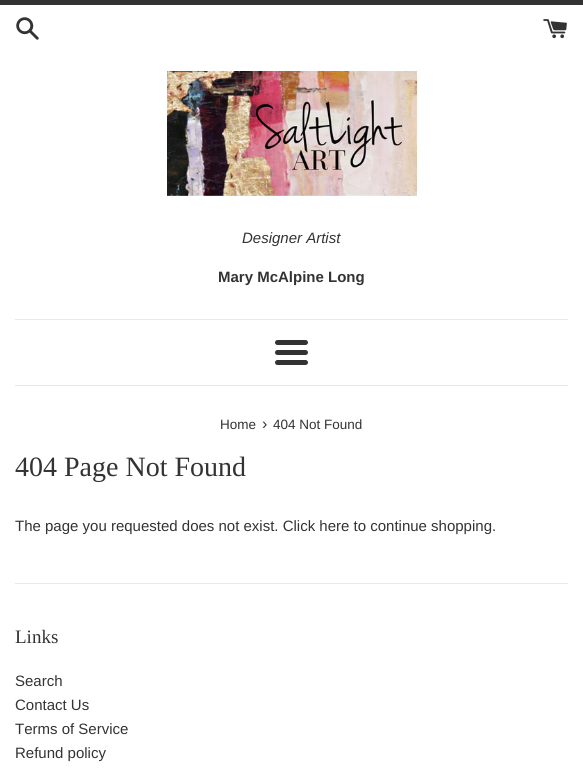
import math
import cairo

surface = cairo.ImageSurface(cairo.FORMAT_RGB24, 583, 781)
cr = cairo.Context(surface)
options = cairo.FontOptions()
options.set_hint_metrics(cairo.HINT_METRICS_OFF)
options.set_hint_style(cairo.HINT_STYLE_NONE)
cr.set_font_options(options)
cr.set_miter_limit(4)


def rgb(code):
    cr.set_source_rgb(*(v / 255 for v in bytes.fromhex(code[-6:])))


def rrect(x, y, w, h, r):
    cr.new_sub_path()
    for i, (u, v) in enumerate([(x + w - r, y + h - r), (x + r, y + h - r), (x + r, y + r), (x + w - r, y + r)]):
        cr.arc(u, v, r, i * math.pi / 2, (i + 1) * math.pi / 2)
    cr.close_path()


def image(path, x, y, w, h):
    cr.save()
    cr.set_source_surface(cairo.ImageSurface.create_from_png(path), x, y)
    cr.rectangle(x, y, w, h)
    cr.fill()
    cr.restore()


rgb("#ffffff")
cr.paint()
rgb("#333333")
cr.rectangle(0, 0, 583, 5)
cr.fill()
image("img/1.png", 16, 17, 23, 23)
image("img/2.png", 543, 19, 24, 20)
image("img/3.png", 167, 71, 250, 125)
rgb("#e8e8e8")
cr.rectangle(15, 319, 553, 1)
cr.fill()
rgb("#333333")
rrect(275, 340, 33, 5, 2.5)
cr.fill()
rrect(275, 350, 33, 5, 2.5)
cr.fill()
rrect(275, 360, 33, 5, 2.5)
cr.fill()
rgb("#e8e8e8")
cr.rectangle(15, 385, 553, 1)
cr.fill()
cr.rectangle(15, 583, 553, 1)
cr.fill()
cr.select_font_face("Liberation Sans", cairo.FONT_SLANT_ITALIC)
cr.set_font_size(15)
rgb("#333333")
cr.move_to(242, 243)
cr.show_text("Designer Artist")
cr.select_font_face("Liberation Sans", cairo.FONT_SLANT_NORMAL, cairo.FONT_WEIGHT_BOLD)
cr.move_to(218, 282)
cr.show_text("Mary McAlpine Long")
cr.select_font_face("Liberation Sans")
cr.set_font_size(13.5)
cr.move_to(220, 429)
cr.show_text("Home")
cr.set_font_size(16)
cr.move_to(262, 429)
cr.show_text("›")
cr.set_font_size(13.5)
cr.move_to(273, 429)
cr.show_text("404 Not Found")
cr.select_font_face("Liberation Serif")
cr.set_font_size(28)
cr.move_to(15, 476)
cr.show_text("404 Page Not Found")
cr.select_font_face("Liberation Sans")
cr.set_font_size(15)
cr.move_to(15, 531)
cr.show_text("The page you requested does not exist. Click here to continue shopping.")
cr.select_font_face("Liberation Serif")
cr.set_font_size(19)
cr.move_to(15, 643)
cr.show_text("Links")
cr.select_font_face("Liberation Sans")
cr.set_font_size(15)
for x, y, s in [
    (15, 686, "Search"),
    (15, 710, "Contact Us"),
    (15, 734, "Terms of Service"),
    (15, 758, "Refund policy"),
]:
    cr.move_to(x, y)
    cr.show_text(s)
surface.write_to_png("page.png")
